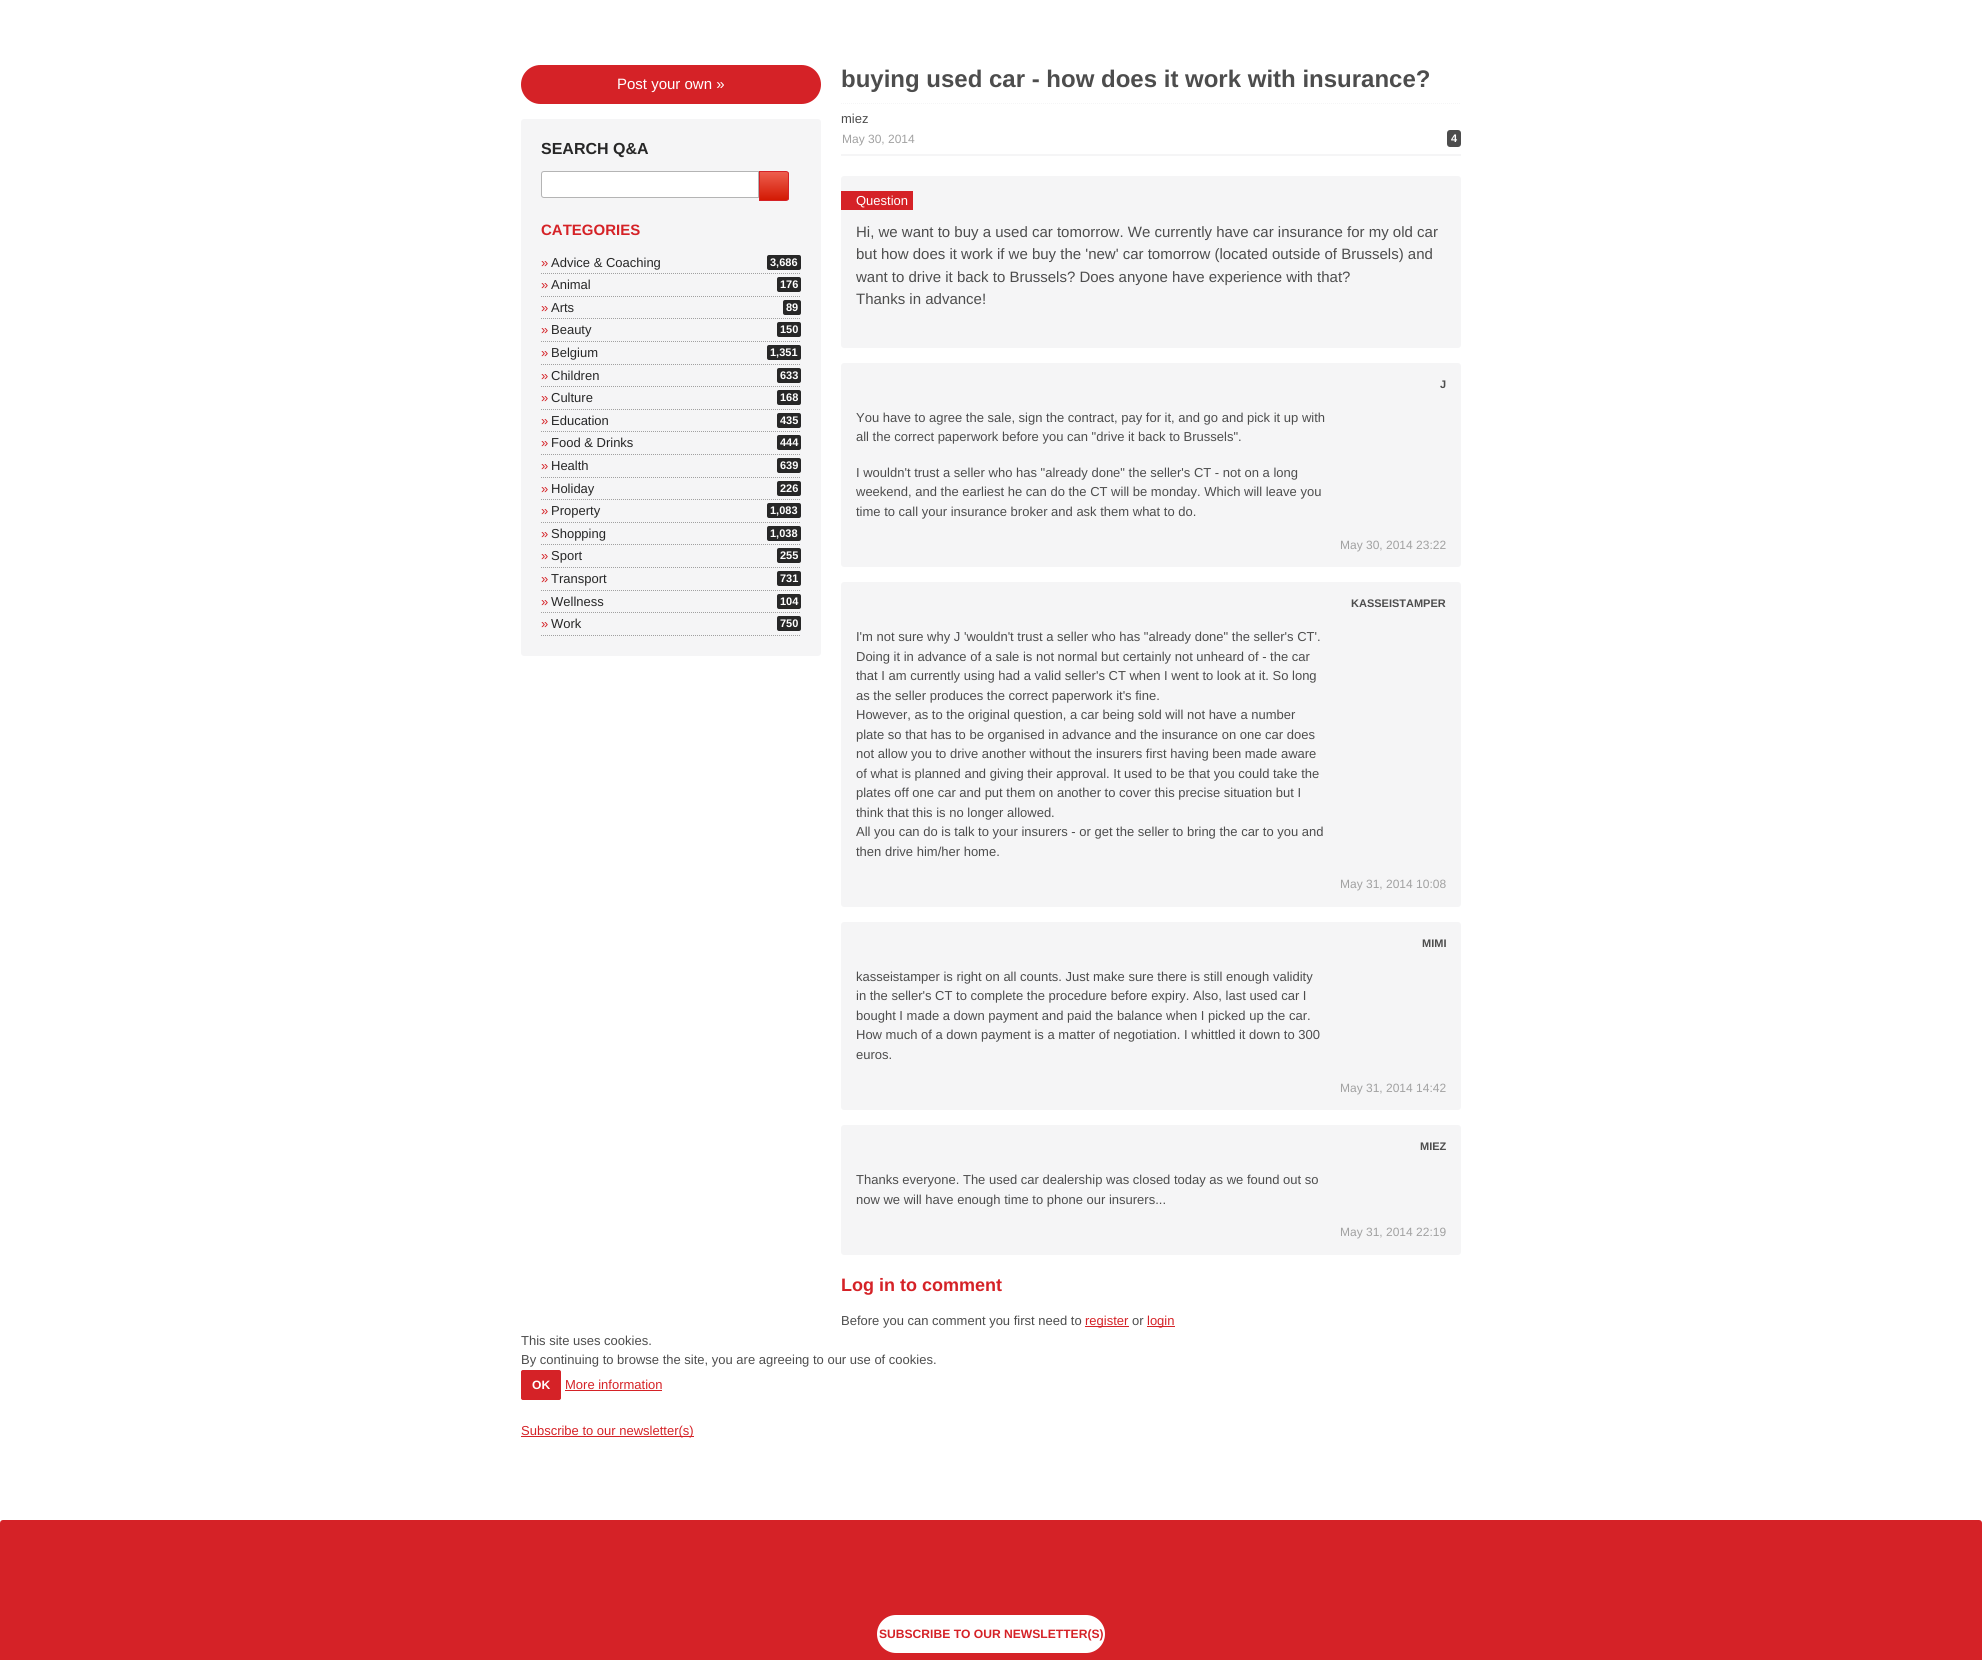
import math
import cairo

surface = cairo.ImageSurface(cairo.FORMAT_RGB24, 1982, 1660)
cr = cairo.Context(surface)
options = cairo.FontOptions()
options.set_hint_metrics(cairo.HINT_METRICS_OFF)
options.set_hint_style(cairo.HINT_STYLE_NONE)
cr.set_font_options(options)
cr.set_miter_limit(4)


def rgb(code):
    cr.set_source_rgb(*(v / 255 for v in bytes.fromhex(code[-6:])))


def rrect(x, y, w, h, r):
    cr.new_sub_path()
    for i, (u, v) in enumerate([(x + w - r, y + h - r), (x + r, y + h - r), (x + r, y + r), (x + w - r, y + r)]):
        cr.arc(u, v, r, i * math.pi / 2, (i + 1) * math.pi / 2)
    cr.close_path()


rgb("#ffffff")
cr.paint()
rgb("#d52227")
rrect(521, 65, 300, 39, 19.5)
cr.fill()
rgb("#f5f5f6")
cr.new_path()
cr.move_to(524, 119)
cr.line_to(818, 119)
cr.curve_to(819.5, 119, 821, 120.5, 821, 122)
cr.line_to(821, 221)
cr.line_to(521, 221)
cr.line_to(521, 122)
cr.curve_to(521, 120.5, 522.5, 119, 524, 119)
cr.close_path()
cr.fill()
rgb("#ffffff")
cr.new_path()
cr.move_to(544, 171.5)
cr.line_to(758.5, 171.5)
cr.line_to(758.5, 197.5)
cr.line_to(544, 197.5)
cr.curve_to(542.5, 197.5, 541.5, 196.5, 541.5, 195)
cr.line_to(541.5, 174)
cr.curve_to(541.5, 172.5, 542.5, 171.5, 544, 171.5)
cr.close_path()
cr.fill_preserve()
rgb("#b4b4b4")
cr.set_line_width(1)
cr.stroke()
cr.save()
cr.new_path()
cr.move_to(759, 171)
cr.line_to(786, 171)
cr.curve_to(787.5, 171, 789, 172.5, 789, 174)
cr.line_to(789, 198)
cr.curve_to(789, 199.5, 787.5, 201, 786, 201)
cr.line_to(759, 201)
cr.close_path()
cr.clip()
gradient = cairo.LinearGradient(774, 200, 774, 172)
gradient.add_color_stop_rgba(0, 0.827, 0.098, 0.012, 1)
gradient.add_color_stop_rgba(1, 0.929, 0.369, 0.306, 1)
cr.set_source(gradient)
cr.rectangle(760, 172, 29, 28)
cr.fill()
cr.restore()
cr.new_path()
cr.move_to(759.5, 171.5)
cr.line_to(786, 171.5)
cr.curve_to(787.5, 171.5, 788.5, 172.5, 788.5, 174)
cr.line_to(788.5, 198)
cr.curve_to(788.5, 199.5, 787.5, 200.5, 786, 200.5)
cr.line_to(759.5, 200.5)
cr.close_path()
rgb("#d52227")
cr.stroke()
rgb("#f5f5f6")
cr.new_path()
cr.move_to(521, 221)
cr.line_to(821, 221)
cr.line_to(821, 653)
cr.curve_to(821, 654.5, 819.5, 656, 818, 656)
cr.line_to(524, 656)
cr.curve_to(522.5, 656, 521, 654.5, 521, 653)
cr.close_path()
cr.fill()
cr.new_path()
cr.move_to(541, 273.5)
cr.line_to(801, 273.5)
rgb("#a1a1a1")
cr.set_dash([1, 1])
cr.stroke()
rgb("#272727")
rrect(767, 255, 34, 15, 2)
cr.fill()
cr.new_path()
cr.move_to(541, 296.5)
cr.line_to(801, 296.5)
rgb("#a1a1a1")
cr.stroke()
rgb("#272727")
rrect(777, 277, 24, 15, 2)
cr.fill()
cr.new_path()
cr.move_to(541, 318.5)
cr.line_to(801, 318.5)
rgb("#a1a1a1")
cr.stroke()
rgb("#272727")
rrect(783, 300, 18, 15, 2)
cr.fill()
cr.new_path()
cr.move_to(541, 341.5)
cr.line_to(801, 341.5)
rgb("#a1a1a1")
cr.stroke()
rgb("#272727")
rrect(777, 322, 24, 15, 2)
cr.fill()
cr.new_path()
cr.move_to(541, 364.5)
cr.line_to(801, 364.5)
rgb("#a1a1a1")
cr.stroke()
rgb("#272727")
rrect(767, 345, 34, 15, 2)
cr.fill()
cr.new_path()
cr.move_to(541, 386.5)
cr.line_to(801, 386.5)
rgb("#a1a1a1")
cr.stroke()
rgb("#272727")
rrect(777, 368, 24, 15, 2)
cr.fill()
cr.new_path()
cr.move_to(541, 409.5)
cr.line_to(801, 409.5)
rgb("#a1a1a1")
cr.stroke()
rgb("#272727")
rrect(777, 390, 24, 15, 2)
cr.fill()
cr.new_path()
cr.move_to(541, 431.5)
cr.line_to(801, 431.5)
rgb("#a1a1a1")
cr.stroke()
rgb("#272727")
rrect(777, 413, 24, 15, 2)
cr.fill()
cr.new_path()
cr.move_to(541, 454.5)
cr.line_to(801, 454.5)
rgb("#a1a1a1")
cr.stroke()
rgb("#272727")
rrect(777, 435, 24, 15, 2)
cr.fill()
cr.new_path()
cr.move_to(541, 477.5)
cr.line_to(801, 477.5)
rgb("#a1a1a1")
cr.stroke()
rgb("#272727")
rrect(777, 458, 24, 15, 2)
cr.fill()
cr.new_path()
cr.move_to(541, 499.5)
cr.line_to(801, 499.5)
rgb("#a1a1a1")
cr.stroke()
rgb("#272727")
rrect(777, 481, 24, 15, 2)
cr.fill()
cr.new_path()
cr.move_to(541, 522.5)
cr.line_to(801, 522.5)
rgb("#a1a1a1")
cr.stroke()
rgb("#272727")
rrect(767, 503, 34, 15, 2)
cr.fill()
cr.new_path()
cr.move_to(541, 544.5)
cr.line_to(801, 544.5)
rgb("#a1a1a1")
cr.stroke()
rgb("#272727")
rrect(767, 526, 34, 15, 2)
cr.fill()
cr.new_path()
cr.move_to(541, 567.5)
cr.line_to(801, 567.5)
rgb("#a1a1a1")
cr.stroke()
rgb("#272727")
rrect(777, 548, 24, 15, 2)
cr.fill()
cr.new_path()
cr.move_to(541, 590.5)
cr.line_to(801, 590.5)
rgb("#a1a1a1")
cr.stroke()
rgb("#272727")
rrect(777, 571, 24, 15, 2)
cr.fill()
cr.new_path()
cr.move_to(541, 612.5)
cr.line_to(801, 612.5)
rgb("#a1a1a1")
cr.stroke()
rgb("#272727")
rrect(777, 594, 24, 15, 2)
cr.fill()
cr.new_path()
cr.move_to(541, 635.5)
cr.line_to(801, 635.5)
rgb("#a1a1a1")
cr.stroke()
rgb("#272727")
rrect(777, 616, 24, 15, 2)
cr.fill()
cr.new_path()
cr.move_to(841, 103.5)
cr.line_to(1461, 103.5)
rgb("#f5f5f6")
cr.stroke()
cr.rectangle(841, 154, 620, 2)
cr.fill()
rgb("#4d4d4d")
rrect(1447, 130, 14, 17, 3)
cr.fill()
rgb("#f5f5f6")
rrect(841, 176, 620, 172, 3)
cr.fill()
rgb("#d52227")
cr.rectangle(841, 191, 72, 19)
cr.fill()
rgb("#f5f5f6")
rrect(841, 363, 620, 204, 3)
cr.fill()
rrect(841, 582, 620, 325, 3)
cr.fill()
rrect(841, 922, 620, 188, 3)
cr.fill()
rrect(841, 1125, 620, 130, 3)
cr.fill()
rgb("#d52227")
cr.rectangle(1085, 1326, 44, 1)
cr.fill()
cr.rectangle(1147, 1326, 28, 1)
cr.fill()
rrect(521.5, 1370.5, 39, 29, 1.5)
cr.fill_preserve()
cr.set_dash([])
cr.stroke()
cr.rectangle(565, 1390, 97, 1)
cr.fill()
cr.rectangle(521, 1436, 173, 1)
cr.fill()
rrect(0, 1520, 1982, 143, 3)
cr.fill()
rgb("#ffffff")
rrect(878, 1616, 226, 36, 18)
cr.fill_preserve()
cr.set_line_width(2)
cr.stroke()
cr.select_font_face("Liberation Sans")
cr.set_font_size(15)
cr.move_to(617, 89)
cr.show_text("Post your own »")
cr.select_font_face("Liberation Sans", cairo.FONT_SLANT_NORMAL, cairo.FONT_WEIGHT_BOLD)
cr.set_font_size(16)
rgb("#272727")
cr.move_to(541, 154)
cr.show_text("SEARCH Q&A")
cr.set_font_size(15)
rgb("#d52227")
cr.move_to(541, 235)
cr.show_text("CATEGORIES")
cr.select_font_face("Liberation Sans")
cr.set_font_size(13)
cr.move_to(541, 267)
cr.show_text("»")
rgb("#272727")
cr.move_to(551, 267)
cr.show_text("Advice & Coaching")
cr.select_font_face("Liberation Sans", cairo.FONT_SLANT_NORMAL, cairo.FONT_WEIGHT_BOLD)
cr.set_font_size(11)
rgb("#ffffff")
cr.move_to(770, 266)
cr.show_text("3,686")
cr.select_font_face("Liberation Sans")
cr.set_font_size(13)
rgb("#d52227")
cr.move_to(541, 289)
cr.show_text("»")
rgb("#272727")
cr.move_to(551, 289)
cr.show_text("Animal")
cr.select_font_face("Liberation Sans", cairo.FONT_SLANT_NORMAL, cairo.FONT_WEIGHT_BOLD)
cr.set_font_size(11)
rgb("#ffffff")
cr.move_to(780, 288)
cr.show_text("176")
cr.select_font_face("Liberation Sans")
cr.set_font_size(13)
rgb("#d52227")
cr.move_to(541, 312)
cr.show_text("»")
rgb("#272727")
cr.move_to(551, 312)
cr.show_text("Arts")
cr.select_font_face("Liberation Sans", cairo.FONT_SLANT_NORMAL, cairo.FONT_WEIGHT_BOLD)
cr.set_font_size(11)
rgb("#ffffff")
cr.move_to(786, 311)
cr.show_text("89")
cr.select_font_face("Liberation Sans")
cr.set_font_size(13)
rgb("#d52227")
cr.move_to(541, 334)
cr.show_text("»")
rgb("#272727")
cr.move_to(551, 334)
cr.show_text("Beauty")
cr.select_font_face("Liberation Sans", cairo.FONT_SLANT_NORMAL, cairo.FONT_WEIGHT_BOLD)
cr.set_font_size(11)
rgb("#ffffff")
cr.move_to(780, 333)
cr.show_text("150")
cr.select_font_face("Liberation Sans")
cr.set_font_size(13)
rgb("#d52227")
cr.move_to(541, 357)
cr.show_text("»")
rgb("#272727")
cr.move_to(551, 357)
cr.show_text("Belgium")
cr.select_font_face("Liberation Sans", cairo.FONT_SLANT_NORMAL, cairo.FONT_WEIGHT_BOLD)
cr.set_font_size(11)
rgb("#ffffff")
cr.move_to(770, 356)
cr.show_text("1,351")
cr.select_font_face("Liberation Sans")
cr.set_font_size(13)
rgb("#d52227")
cr.move_to(541, 380)
cr.show_text("»")
rgb("#272727")
cr.move_to(551, 380)
cr.show_text("Children")
cr.select_font_face("Liberation Sans", cairo.FONT_SLANT_NORMAL, cairo.FONT_WEIGHT_BOLD)
cr.set_font_size(11)
rgb("#ffffff")
cr.move_to(780, 379)
cr.show_text("633")
cr.select_font_face("Liberation Sans")
cr.set_font_size(13)
rgb("#d52227")
cr.move_to(541, 402)
cr.show_text("»")
rgb("#272727")
cr.move_to(551, 402)
cr.show_text("Culture")
cr.select_font_face("Liberation Sans", cairo.FONT_SLANT_NORMAL, cairo.FONT_WEIGHT_BOLD)
cr.set_font_size(11)
rgb("#ffffff")
cr.move_to(780, 401)
cr.show_text("168")
cr.select_font_face("Liberation Sans")
cr.set_font_size(13)
rgb("#d52227")
cr.move_to(541, 425)
cr.show_text("»")
rgb("#272727")
cr.move_to(551, 425)
cr.show_text("Education")
cr.select_font_face("Liberation Sans", cairo.FONT_SLANT_NORMAL, cairo.FONT_WEIGHT_BOLD)
cr.set_font_size(11)
rgb("#ffffff")
cr.move_to(780, 424)
cr.show_text("435")
cr.select_font_face("Liberation Sans")
cr.set_font_size(13)
rgb("#d52227")
cr.move_to(541, 447)
cr.show_text("»")
rgb("#272727")
cr.move_to(551, 447)
cr.show_text("Food & Drinks")
cr.select_font_face("Liberation Sans", cairo.FONT_SLANT_NORMAL, cairo.FONT_WEIGHT_BOLD)
cr.set_font_size(11)
rgb("#ffffff")
cr.move_to(780, 446)
cr.show_text("444")
cr.select_font_face("Liberation Sans")
cr.set_font_size(13)
rgb("#d52227")
cr.move_to(541, 470)
cr.show_text("»")
rgb("#272727")
cr.move_to(551, 470)
cr.show_text("Health")
cr.select_font_face("Liberation Sans", cairo.FONT_SLANT_NORMAL, cairo.FONT_WEIGHT_BOLD)
cr.set_font_size(11)
rgb("#ffffff")
cr.move_to(780, 469)
cr.show_text("639")
cr.select_font_face("Liberation Sans")
cr.set_font_size(13)
rgb("#d52227")
cr.move_to(541, 493)
cr.show_text("»")
rgb("#272727")
cr.move_to(551, 493)
cr.show_text("Holiday")
cr.select_font_face("Liberation Sans", cairo.FONT_SLANT_NORMAL, cairo.FONT_WEIGHT_BOLD)
cr.set_font_size(11)
rgb("#ffffff")
cr.move_to(780, 492)
cr.show_text("226")
cr.select_font_face("Liberation Sans")
cr.set_font_size(13)
rgb("#d52227")
cr.move_to(541, 515)
cr.show_text("»")
rgb("#272727")
cr.move_to(551, 515)
cr.show_text("Property")
cr.select_font_face("Liberation Sans", cairo.FONT_SLANT_NORMAL, cairo.FONT_WEIGHT_BOLD)
cr.set_font_size(11)
rgb("#ffffff")
cr.move_to(770, 514)
cr.show_text("1,083")
cr.select_font_face("Liberation Sans")
cr.set_font_size(13)
rgb("#d52227")
cr.move_to(541, 538)
cr.show_text("»")
rgb("#272727")
cr.move_to(551, 538)
cr.show_text("Shopping")
cr.select_font_face("Liberation Sans", cairo.FONT_SLANT_NORMAL, cairo.FONT_WEIGHT_BOLD)
cr.set_font_size(11)
rgb("#ffffff")
cr.move_to(770, 537)
cr.show_text("1,038")
cr.select_font_face("Liberation Sans")
cr.set_font_size(13)
rgb("#d52227")
cr.move_to(541, 560)
cr.show_text("»")
rgb("#272727")
cr.move_to(551, 560)
cr.show_text("Sport")
cr.select_font_face("Liberation Sans", cairo.FONT_SLANT_NORMAL, cairo.FONT_WEIGHT_BOLD)
cr.set_font_size(11)
rgb("#ffffff")
cr.move_to(780, 559)
cr.show_text("255")
cr.select_font_face("Liberation Sans")
cr.set_font_size(13)
rgb("#d52227")
cr.move_to(541, 583)
cr.show_text("»")
rgb("#272727")
cr.move_to(551, 583)
cr.show_text("Transport")
cr.select_font_face("Liberation Sans", cairo.FONT_SLANT_NORMAL, cairo.FONT_WEIGHT_BOLD)
cr.set_font_size(11)
rgb("#ffffff")
cr.move_to(780, 582)
cr.show_text("731")
cr.select_font_face("Liberation Sans")
cr.set_font_size(13)
rgb("#d52227")
cr.move_to(541, 606)
cr.show_text("»")
rgb("#272727")
cr.move_to(551, 606)
cr.show_text("Wellness")
cr.select_font_face("Liberation Sans", cairo.FONT_SLANT_NORMAL, cairo.FONT_WEIGHT_BOLD)
cr.set_font_size(11)
rgb("#ffffff")
cr.move_to(780, 605)
cr.show_text("104")
cr.select_font_face("Liberation Sans")
cr.set_font_size(13)
rgb("#d52227")
cr.move_to(541, 628)
cr.show_text("»")
rgb("#272727")
cr.move_to(551, 628)
cr.show_text("Work")
cr.select_font_face("Liberation Sans", cairo.FONT_SLANT_NORMAL, cairo.FONT_WEIGHT_BOLD)
cr.set_font_size(11)
rgb("#ffffff")
cr.move_to(780, 627)
cr.show_text("750")
cr.set_font_size(24)
rgb("#4d4d4d")
cr.move_to(841, 87)
cr.show_text("buying used car - how does it work with insurance?")
cr.select_font_face("Liberation Sans")
cr.set_font_size(13)
cr.move_to(841, 123)
cr.show_text("miez")
cr.set_font_size(12)
rgb("#a1a1a1")
cr.move_to(842, 143)
cr.show_text("May 30, 2014")
cr.select_font_face("Liberation Sans", cairo.FONT_SLANT_NORMAL, cairo.FONT_WEIGHT_BOLD)
cr.set_font_size(11)
rgb("#ffffff")
cr.move_to(1451, 142)
cr.show_text("4")
cr.select_font_face("Liberation Sans")
cr.set_font_size(13)
cr.move_to(856, 205)
cr.show_text("Question")
cr.set_font_size(15)
rgb("#4d4d4d")
for x, y, s in [
    (856, 237, "Hi, we want to buy a used car tomorrow. We currently have car insurance for my old car"),
    (856, 259, "but how does it work if we buy the 'new' car tomorrow (located outside of Brussels) and"),
    (856, 282, "want to drive it back to Brussels? Does anyone have experience with that?"),
    (856, 304, "Thanks in advance!"),
]:
    cr.move_to(x, y)
    cr.show_text(s)
cr.select_font_face("Liberation Sans", cairo.FONT_SLANT_NORMAL, cairo.FONT_WEIGHT_BOLD)
cr.set_font_size(11)
cr.move_to(1440, 388)
cr.show_text("J")
cr.select_font_face("Liberation Sans")
cr.set_font_size(13)
for x, y, s in [
    (856, 422, "You have to agree the sale, sign the contract, pay for it, and go and pick it up with"),
    (856, 441, "all the correct paperwork before you can \"drive it back to Brussels\"."),
    (856, 477, "I wouldn't trust a seller who has \"already done\" the seller's CT - not on a long"),
    (856, 496, "weekend, and the earliest he can do the CT will be monday. Which will leave you"),
    (856, 516, "time to call your insurance broker and ask them what to do."),
]:
    cr.move_to(x, y)
    cr.show_text(s)
cr.set_font_size(12)
rgb("#a1a1a1")
cr.move_to(1340, 549)
cr.show_text("May 30, 2014 23:22")
cr.select_font_face("Liberation Sans", cairo.FONT_SLANT_NORMAL, cairo.FONT_WEIGHT_BOLD)
cr.set_font_size(11)
rgb("#4d4d4d")
cr.move_to(1351, 607)
cr.show_text("KASSEISTAMPER")
cr.select_font_face("Liberation Sans")
cr.set_font_size(13)
for x, y, s in [
    (856, 641, "I'm not sure why J 'wouldn't trust a seller who has \"already done\" the seller's CT'."),
    (856, 661, "Doing it in advance of a sale is not normal but certainly not unheard of - the car"),
    (856, 680, "that I am currently using had a valid seller's CT when I went to look at it. So long"),
    (856, 700, "as the seller produces the correct paperwork it's fine."),
    (856, 719, "However, as to the original question, a car being sold will not have a number"),
    (856, 739, "plate so that has to be organised in advance and the insurance on one car does"),
    (856, 758, "not allow you to drive another without the insurers first having been made aware"),
    (856, 778, "of what is planned and giving their approval. It used to be that you could take the"),
    (856, 797, "plates off one car and put them on another to cover this precise situation but I"),
    (856, 817, "think that this is no longer allowed."),
    (856, 836, "All you can do is talk to your insurers - or get the seller to bring the car to you and"),
    (856, 856, "then drive him/her home."),
]:
    cr.move_to(x, y)
    cr.show_text(s)
cr.set_font_size(12)
rgb("#a1a1a1")
cr.move_to(1340, 888)
cr.show_text("May 31, 2014 10:08")
cr.select_font_face("Liberation Sans", cairo.FONT_SLANT_NORMAL, cairo.FONT_WEIGHT_BOLD)
cr.set_font_size(11)
rgb("#4d4d4d")
cr.move_to(1422, 947)
cr.show_text("MIMI")
cr.select_font_face("Liberation Sans")
cr.set_font_size(13)
for x, y, s in [
    (856, 981, "kasseistamper is right on all counts. Just make sure there is still enough validity"),
    (856, 1000, "in the seller's CT to complete the procedure before expiry. Also, last used car I"),
    (856, 1020, "bought I made a down payment and paid the balance when I picked up the car."),
    (856, 1039, "How much of a down payment is a matter of negotiation. I whittled it down to 300"),
    (856, 1059, "euros."),
]:
    cr.move_to(x, y)
    cr.show_text(s)
cr.set_font_size(12)
rgb("#a1a1a1")
cr.move_to(1340, 1092)
cr.show_text("May 31, 2014 14:42")
cr.select_font_face("Liberation Sans", cairo.FONT_SLANT_NORMAL, cairo.FONT_WEIGHT_BOLD)
cr.set_font_size(11)
rgb("#4d4d4d")
cr.move_to(1420, 1150)
cr.show_text("MIEZ")
cr.select_font_face("Liberation Sans")
cr.set_font_size(13)
cr.move_to(856, 1184)
cr.show_text("Thanks everyone. The used car dealership was closed today as we found out so")
cr.move_to(856, 1204)
cr.show_text("now we will have enough time to phone our insurers...")
cr.set_font_size(12)
rgb("#a1a1a1")
cr.move_to(1340, 1236)
cr.show_text("May 31, 2014 22:19")
cr.select_font_face("Liberation Sans", cairo.FONT_SLANT_NORMAL, cairo.FONT_WEIGHT_BOLD)
cr.set_font_size(18)
rgb("#d52227")
cr.move_to(841, 1291)
cr.show_text("Log in to comment")
cr.select_font_face("Liberation Sans")
cr.set_font_size(13)
rgb("#4d4d4d")
cr.move_to(841, 1325)
cr.show_text("Before you can comment you first need to")
rgb("#d52227")
cr.move_to(1085, 1325)
cr.show_text("register")
rgb("#4d4d4d")
cr.move_to(1132, 1325)
cr.show_text("or")
rgb("#d52227")
cr.move_to(1147, 1325)
cr.show_text("login")
rgb("#4d4d4d")
cr.move_to(521, 1345)
cr.show_text("This site uses cookies.")
cr.move_to(521, 1364)
cr.show_text("By continuing to browse the site, you are agreeing to our use of cookies.")
cr.select_font_face("Liberation Sans", cairo.FONT_SLANT_NORMAL, cairo.FONT_WEIGHT_BOLD)
cr.set_font_size(12.1)
rgb("#ffffff")
cr.move_to(532, 1389)
cr.show_text("OK")
cr.select_font_face("Liberation Sans")
cr.set_font_size(13)
rgb("#d52227")
cr.move_to(565, 1389)
cr.show_text("More information")
cr.move_to(521, 1435)
cr.show_text("Subscribe to our newsletter(s)")
cr.save()
rrect(879, 1617, 224, 34, 17)
cr.clip()
cr.select_font_face("Liberation Sans", cairo.FONT_SLANT_NORMAL, cairo.FONT_WEIGHT_BOLD)
cr.set_font_size(12.1)
cr.move_to(879, 1638)
cr.show_text("SUBSCRIBE TO OUR NEWSLETTER(S)")
cr.restore()
surface.write_to_png("page.png")
